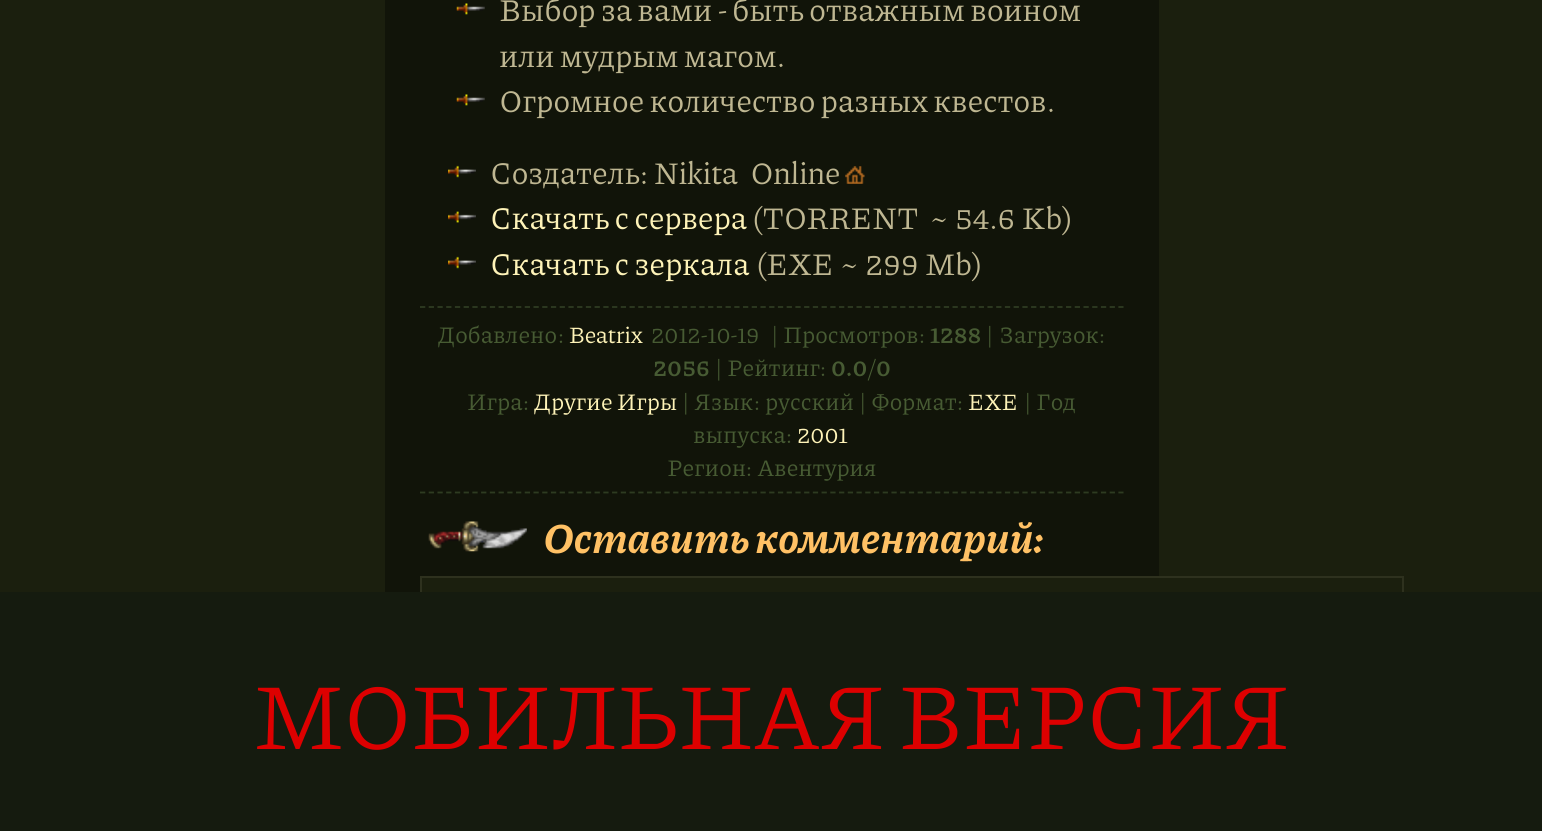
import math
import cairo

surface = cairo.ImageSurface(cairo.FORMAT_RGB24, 1542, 831)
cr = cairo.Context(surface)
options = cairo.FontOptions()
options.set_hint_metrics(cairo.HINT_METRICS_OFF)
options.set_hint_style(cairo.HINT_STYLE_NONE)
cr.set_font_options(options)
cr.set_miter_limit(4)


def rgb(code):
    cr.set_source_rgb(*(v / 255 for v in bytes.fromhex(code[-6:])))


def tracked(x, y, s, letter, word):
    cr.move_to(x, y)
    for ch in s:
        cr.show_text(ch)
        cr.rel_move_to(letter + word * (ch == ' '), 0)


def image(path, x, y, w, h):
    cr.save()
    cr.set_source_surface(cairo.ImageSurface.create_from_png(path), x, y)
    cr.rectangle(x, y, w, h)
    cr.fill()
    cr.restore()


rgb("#1b1f0e")
cr.paint()
rgb("#111409")
cr.rectangle(385, 0, 774, 592)
cr.fill()
image("img/1.png", 456, 3, 29, 12)
image("img/1.png", 456, 94, 29, 12)
image("img/2.png", 448, 165, 28, 13)
image("img/3.png", 845, 166, 20, 18)
image("img/4.png", 448, 211, 28, 12)
image("img/2.png", 448, 256, 28, 13)
cr.new_path()
cr.move_to(420, 307)
cr.line_to(1123.5, 307)
rgb("#2e3b21")
cr.set_line_width(1.8)
cr.set_dash([5.25, 3.48])
cr.stroke()
cr.new_path()
cr.move_to(420, 492.5)
cr.line_to(1123.5, 492.5)
cr.stroke()
image("img/5.png", 428, 521, 99, 31)
rgb("#1b1f0e")
cr.rectangle(422, 578, 737, 14)
cr.fill()
cr.rectangle(421, 577, 982, 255)
rgb("#2e311e")
cr.set_line_width(2)
cr.set_dash([])
cr.stroke()
rgb("#151b0f")
cr.rectangle(0, 592, 1542, 239)
cr.fill()
cr.select_font_face("Piazzolla")
cr.set_font_size(31.5)
rgb("#bfb792")
cr.move_to(499, 21)
cr.show_text("Выбор за вами")
cr.select_font_face("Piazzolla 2")
cr.move_to(718, 21)
cr.show_text("-")
cr.select_font_face("Piazzolla")
cr.move_to(732, 21)
cr.show_text("быть отважным воином")
cr.move_to(499, 67)
cr.show_text("или мудрым магом")
cr.select_font_face("Piazzolla 2")
cr.move_to(777, 67)
cr.show_text(".")
cr.select_font_face("Piazzolla")
cr.move_to(499, 112)
cr.show_text("Огромное количество разных квестов")
cr.select_font_face("Piazzolla 2")
cr.move_to(1047, 112)
cr.show_text(".")
cr.select_font_face("Piazzolla")
cr.move_to(490, 184)
cr.show_text("Создатель")
cr.select_font_face("Piazzolla 2")
cr.move_to(640, 184)
cr.show_text(":")
tracked(654, 184, "Nikita Online", 0, 8)
cr.select_font_face("Piazzolla")
rgb("#fef3b8")
cr.move_to(490, 229)
cr.show_text("Скачать с сервера")
cr.select_font_face("Piazzolla 2")
rgb("#bfb792")
cr.move_to(753, 229)
cr.show_text("(TORRENT")
tracked(930, 229, "~ 54.6 Kb)", 0, 2)
cr.select_font_face("Piazzolla")
rgb("#fef3b8")
cr.move_to(490, 275)
cr.show_text("Скачать с зеркала")
cr.select_font_face("Piazzolla 2")
rgb("#bfb792")
tracked(757, 275, "(EXE ~ 299 Mb)", 0, 2)
cr.select_font_face("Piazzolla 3")
cr.set_font_size(23.5)
rgb("#475b33")
cr.move_to(438, 343)
cr.show_text("Добавлено")
cr.select_font_face("Piazzolla 2")
cr.move_to(558, 343)
cr.show_text(":")
rgb("#fef3b8")
cr.move_to(569, 343)
cr.show_text("Beatrix")
rgb("#475b33")
cr.move_to(651, 343)
cr.show_text("2012-10-19")
cr.move_to(771, 343)
cr.show_text("|")
cr.select_font_face("Piazzolla 3")
cr.move_to(783, 343)
cr.show_text("Просмотров")
cr.select_font_face("Piazzolla 2")
cr.move_to(919, 343)
cr.show_text(":")
cr.select_font_face("Piazzolla", cairo.FONT_SLANT_NORMAL, cairo.FONT_WEIGHT_BOLD)
cr.move_to(930, 343)
cr.show_text("1288")
cr.select_font_face("Piazzolla 2")
cr.move_to(986, 343)
cr.show_text("|")
cr.select_font_face("Piazzolla 3")
cr.move_to(999, 343)
cr.show_text("Загрузок")
cr.select_font_face("Piazzolla 2")
cr.move_to(1099, 343)
cr.show_text(":")
cr.select_font_face("Piazzolla", cairo.FONT_SLANT_NORMAL, cairo.FONT_WEIGHT_BOLD)
cr.move_to(653, 376)
cr.show_text("2056")
cr.select_font_face("Piazzolla 2")
cr.move_to(715, 376)
cr.show_text("|")
cr.select_font_face("Piazzolla 3")
cr.move_to(727, 376)
cr.show_text("Рейтинг")
cr.select_font_face("Piazzolla 2")
cr.move_to(820, 376)
cr.show_text(":")
cr.select_font_face("Piazzolla", cairo.FONT_SLANT_NORMAL, cairo.FONT_WEIGHT_BOLD)
cr.move_to(831, 376)
cr.show_text("0.0")
cr.select_font_face("Piazzolla 2")
cr.move_to(868, 376)
cr.show_text("/")
cr.select_font_face("Piazzolla", cairo.FONT_SLANT_NORMAL, cairo.FONT_WEIGHT_BOLD)
cr.move_to(876, 376)
cr.show_text("0")
cr.select_font_face("Piazzolla 3")
cr.move_to(467, 410)
cr.show_text("Игра")
cr.select_font_face("Piazzolla 2")
cr.move_to(523, 410)
cr.show_text(":")
cr.select_font_face("Piazzolla 3")
rgb("#fef3b8")
cr.move_to(534, 410)
cr.show_text("Другие Игры")
cr.select_font_face("Piazzolla 2")
rgb("#475b33")
cr.move_to(682, 410)
cr.show_text("|")
cr.select_font_face("Piazzolla 3")
cr.move_to(694, 410)
cr.show_text("Язык")
cr.select_font_face("Piazzolla 2")
cr.move_to(754, 410)
cr.show_text(":")
cr.select_font_face("Piazzolla 3")
cr.move_to(765, 410)
cr.show_text("русский")
cr.select_font_face("Piazzolla 2")
cr.move_to(859, 410)
cr.show_text("|")
cr.select_font_face("Piazzolla 3")
cr.move_to(871, 410)
cr.show_text("Формат")
cr.select_font_face("Piazzolla 2")
cr.move_to(957, 410)
cr.show_text(":")
rgb("#fef3b8")
cr.move_to(968, 410)
cr.show_text("EXE")
rgb("#475b33")
cr.move_to(1024, 410)
cr.show_text("|")
cr.select_font_face("Piazzolla 3")
cr.move_to(1036, 410)
cr.show_text("Год")
cr.move_to(693, 443)
cr.show_text("выпуска")
cr.select_font_face("Piazzolla 2")
cr.move_to(786, 443)
cr.show_text(":")
rgb("#fef3b8")
cr.move_to(797, 443)
cr.show_text("2001")
cr.select_font_face("Piazzolla 3")
rgb("#475b33")
cr.move_to(667, 476)
cr.show_text("Регион")
cr.select_font_face("Piazzolla 2")
cr.move_to(746, 476)
cr.show_text(":")
cr.select_font_face("Piazzolla 3")
cr.move_to(757, 476)
cr.show_text("Авентурия")
cr.select_font_face("Piazzolla", cairo.FONT_SLANT_ITALIC, cairo.FONT_WEIGHT_BOLD)
cr.set_font_size(42.5)
rgb("#ffc165")
cr.move_to(543, 553)
cr.show_text("Оставить комментарий")
cr.select_font_face("Piazzolla 2", cairo.FONT_SLANT_ITALIC, cairo.FONT_WEIGHT_BOLD)
cr.move_to(1033, 553)
cr.show_text(":")
cr.select_font_face("Piazzolla 2")
cr.set_font_size(94.5)
rgb("#dd0000")
cr.move_to(254, 749)
cr.show_text("МОБИЛЬНАЯ ВЕРСИЯ")
surface.write_to_png("page.png")
